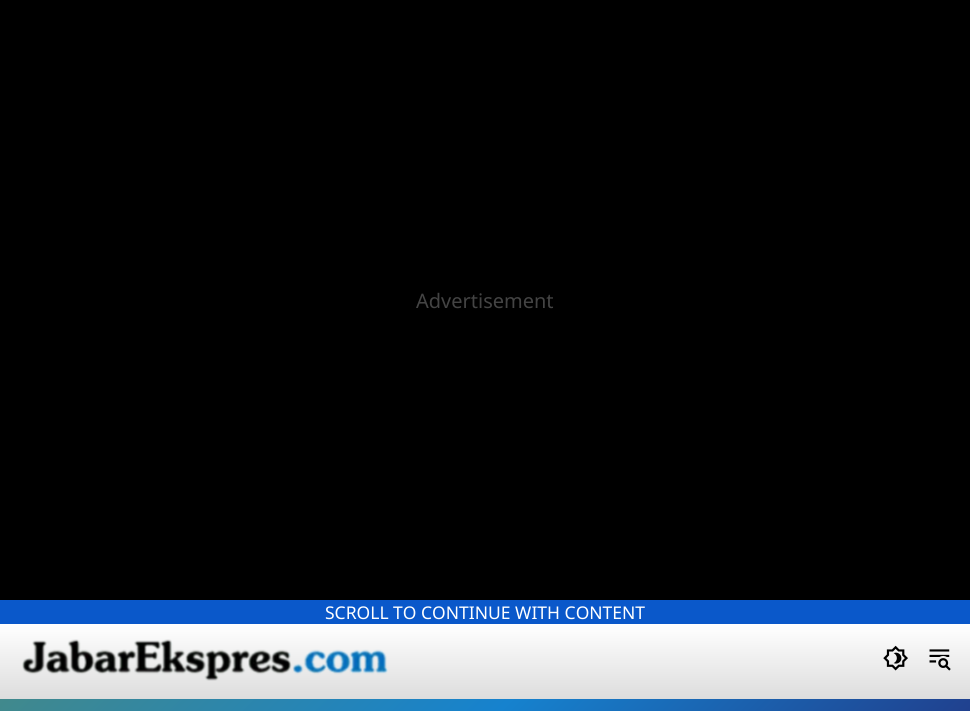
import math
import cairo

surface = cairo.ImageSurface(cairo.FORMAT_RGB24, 970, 711)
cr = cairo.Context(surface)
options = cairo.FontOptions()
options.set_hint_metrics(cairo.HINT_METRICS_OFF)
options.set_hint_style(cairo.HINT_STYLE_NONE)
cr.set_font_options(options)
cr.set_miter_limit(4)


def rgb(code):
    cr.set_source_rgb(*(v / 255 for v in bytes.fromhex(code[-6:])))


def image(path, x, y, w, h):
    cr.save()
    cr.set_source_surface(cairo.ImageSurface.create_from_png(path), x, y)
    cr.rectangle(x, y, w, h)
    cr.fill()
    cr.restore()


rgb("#000000")
cr.paint()
rgb("#0a58ca")
cr.rectangle(0, 600, 970, 24)
cr.fill()
gradient = cairo.LinearGradient(485, 624, 485, 699)
gradient.add_color_stop_rgba(0, 1, 1, 1, 1)
gradient.add_color_stop_rgba(1, 0.867, 0.867, 0.867, 1)
cr.set_source(gradient)
cr.rectangle(0, 624, 970, 75)
cr.fill()
image("img/1.png", 22, 639, 366, 42)
image("img/2.png", 883, 645, 25, 26)
image("img/3.png", 929, 649, 22, 22)
gradient = cairo.LinearGradient(229, 469, 741, 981)
gradient.add_color_stop_rgba(0, 0.255, 0.537, 0.549, 1)
gradient.add_color_stop_rgba(0.5, 0.086, 0.51, 0.808, 1)
gradient.add_color_stop_rgba(1, 0.129, 0.231, 0.537, 1)
cr.set_source(gradient)
cr.rectangle(0, 699, 970, 12)
cr.fill()
cr.select_font_face("Noto Sans")
cr.set_font_size(20)
rgb("#444444")
cr.move_to(416, 308)
cr.show_text("Advertisement")
cr.set_font_size(17.5)
rgb("#ffffff")
cr.move_to(325, 619)
cr.show_text("SCROLL TO CONTINUE WITH CONTENT")
surface.write_to_png("page.png")
